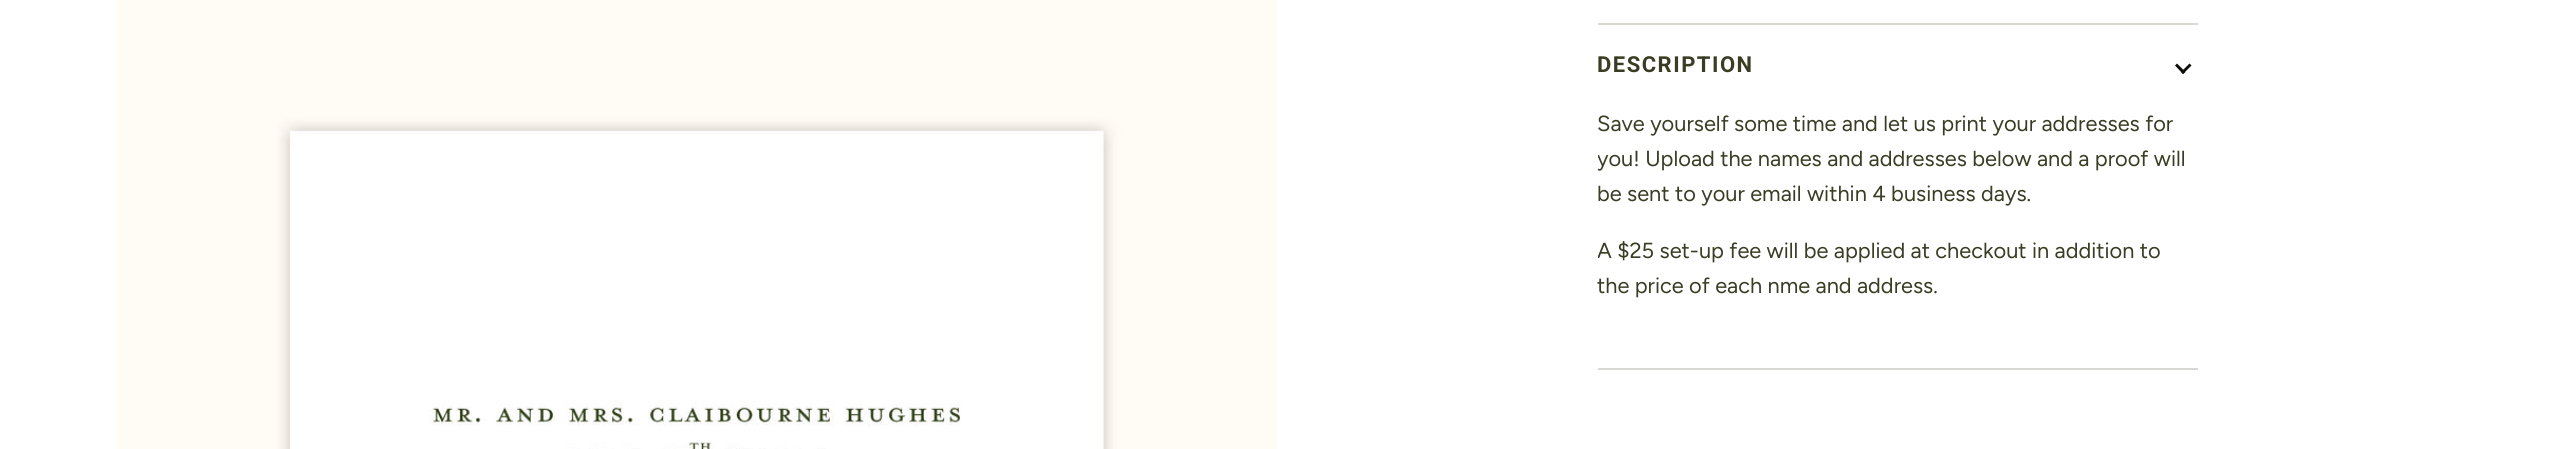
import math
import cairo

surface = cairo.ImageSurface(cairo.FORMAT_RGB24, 2555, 449)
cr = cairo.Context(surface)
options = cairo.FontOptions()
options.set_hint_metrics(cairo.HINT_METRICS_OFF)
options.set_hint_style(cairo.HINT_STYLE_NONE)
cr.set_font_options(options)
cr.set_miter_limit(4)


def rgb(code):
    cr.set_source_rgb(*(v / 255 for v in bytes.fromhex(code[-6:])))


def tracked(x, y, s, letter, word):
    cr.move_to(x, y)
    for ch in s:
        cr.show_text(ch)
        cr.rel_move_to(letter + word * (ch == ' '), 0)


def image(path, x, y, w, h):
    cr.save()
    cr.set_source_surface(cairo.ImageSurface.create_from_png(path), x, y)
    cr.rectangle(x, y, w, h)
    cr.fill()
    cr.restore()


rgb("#ffffff")
cr.paint()
image("img/1.png", 116, 0, 1162, 449)
rgb("#d8d8d3")
cr.rectangle(1598, 23, 600, 2)
cr.fill()
cr.rectangle(1598, 368, 600, 2)
cr.fill()
rgb("#0d0e07")
cr.new_path()
cr.move_to(2181, 72)
cr.line_to(2189.5, 63.5)
cr.line_to(2191.5, 65.5)
cr.line_to(2183, 74)
cr.close_path()
cr.fill()
cr.new_path()
cr.move_to(2175, 65.5)
cr.line_to(2177, 63.5)
cr.line_to(2185.5, 72)
cr.line_to(2183, 74)
cr.close_path()
cr.fill()
cr.select_font_face("Roboto", cairo.FONT_SLANT_NORMAL, cairo.FONT_WEIGHT_BOLD)
cr.set_font_size(22)
rgb("#3a3d24")
tracked(1597, 72, "DESCRIPTION", 1.5, 0)
cr.select_font_face("Figtree")
cr.set_font_size(21.8)
cr.move_to(1597, 131)
cr.show_text("Save yourself some time and let us print your addresses for")
cr.save()
cr.rectangle(1598, 108, 600, 260)
cr.clip()
cr.move_to(1597, 166)
cr.show_text("you! Upload the names and addresses below and a proof will")
cr.restore()
cr.move_to(1597, 201)
cr.show_text("be sent to your email within 4 business days.")
cr.save()
cr.rectangle(1598, 108, 600, 260)
cr.clip()
cr.move_to(1597, 258)
cr.show_text("A $25 set-up fee will be applied at checkout in addition to")
cr.restore()
cr.move_to(1597, 293)
cr.show_text("the price of each nme and address.")
surface.write_to_png("page.png")
